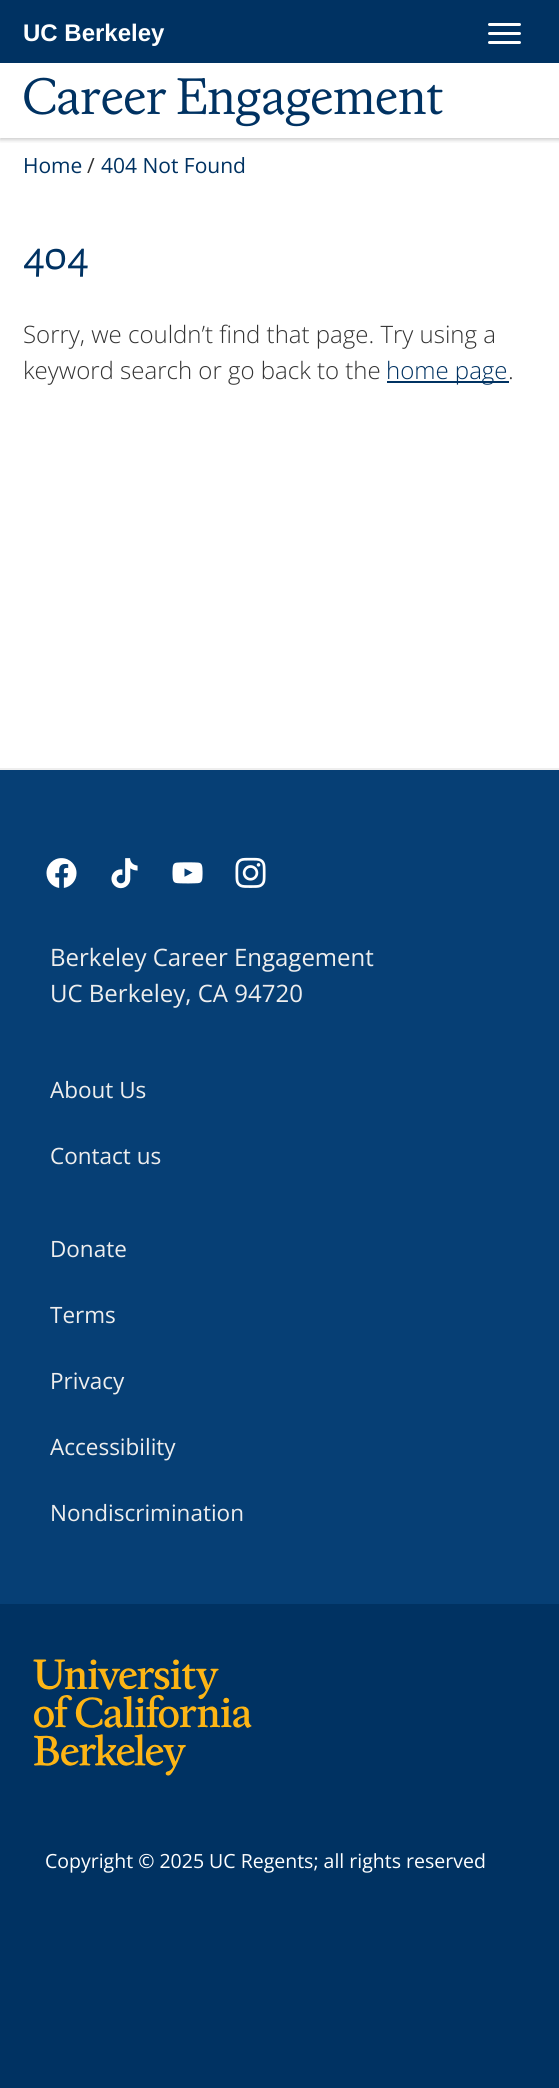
import math
import cairo

surface = cairo.ImageSurface(cairo.FORMAT_RGB24, 559, 2088)
cr = cairo.Context(surface)
options = cairo.FontOptions()
options.set_hint_metrics(cairo.HINT_METRICS_OFF)
options.set_hint_style(cairo.HINT_STYLE_NONE)
cr.set_font_options(options)
cr.set_miter_limit(4)


def rgb(code):
    cr.set_source_rgb(*(v / 255 for v in bytes.fromhex(code[-6:])))


def rrect(x, y, w, h, r):
    cr.new_sub_path()
    for i, (u, v) in enumerate([(x + w - r, y + h - r), (x + r, y + h - r), (x + r, y + r), (x + w - r, y + r)]):
        cr.arc(u, v, r, i * math.pi / 2, (i + 1) * math.pi / 2)
    cr.close_path()


def soft_shadow(x, y, w, h, r, blur, alpha):
    cr.push_group_with_content(cairo.CONTENT_ALPHA)
    cr.set_operator(cairo.OPERATOR_SOURCE)
    for i in range(15, -16, -2):
        e = blur * i / 6
        if min(w, h) + 2 * e > 0:
            cr.set_source_rgba(0, 0, 0, alpha * math.erfc((i - 1) / 8.5) / 2)
            rrect(x - e, y - e, w + 2 * e, h + 2 * e, max(0, min(r + e + blur * .6, min(w, h) / 2 + e)))
            cr.fill()
    cr.mask(cr.pop_group())


def image(path, x, y, w, h):
    cr.save()
    cr.set_source_surface(cairo.ImageSurface.create_from_png(path), x, y)
    cr.rectangle(x, y, w, h)
    cr.fill()
    cr.restore()


rgb("#003262")
cr.paint()
rgb("#ffffff")
cr.rectangle(0, 138, 559, 630)
cr.fill()
cr.save()
cr.rectangle(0, 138, 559, 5)
cr.clip()
rgb("#000000")
soft_shadow(0, 2, 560, 138, 0, 2, 0.2)
cr.restore()
cr.rectangle(0, 63, 559, 75)
cr.fill()
rrect(488, 23, 33, 3, 1.5)
cr.fill()
rrect(488, 32, 33, 3, 1.5)
cr.fill()
rrect(488, 41, 33, 3, 1.5)
cr.fill()
for x, y, w, h, color in [
    (387, 381, 122, 2, "#003262"),
    (0, 770, 559, 834, "#063f75"),
    (0, 768, 559, 2, "#eeeeee"),
]:
    rgb(color)
    cr.rectangle(x, y, w, h)
    cr.fill()
image("img/1.png", 46, 858, 31, 30)
image("img/2.png", 111, 858, 27, 31)
image("img/3.png", 172, 862, 31, 22)
image("img/4.png", 235, 857, 31, 31)
image("img/5.png", 33, 1659, 219, 117)
cr.select_font_face("Liberation Sans", cairo.FONT_SLANT_NORMAL, cairo.FONT_WEIGHT_BOLD)
cr.set_font_size(24)
rgb("#ffffff")
cr.move_to(23, 41)
cr.show_text("UC Berkeley")
cr.select_font_face("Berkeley")
cr.set_font_size(51)
rgb("#003262")
cr.move_to(23, 114)
cr.show_text("Career Engagement")
cr.select_font_face("Open Sans")
cr.set_font_size(21)
cr.move_to(23, 173)
cr.show_text("Home")
rgb("#333333")
cr.move_to(87, 173)
cr.show_text("/")
rgb("#003262")
cr.move_to(101, 173)
cr.show_text("404 Not Found")
cr.select_font_face("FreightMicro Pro")
cr.set_font_size(42)
cr.move_to(23, 269)
cr.show_text("404")
cr.select_font_face("Open Sans Light")
cr.set_font_size(24)
rgb("#333333")
cr.move_to(23, 343)
cr.show_text("Sorry, we couldn’t find that page. Try using a")
cr.move_to(23, 379)
cr.show_text("keyword search or go back to the")
rgb("#003262")
cr.move_to(386, 379)
cr.show_text("home page")
rgb("#333333")
cr.move_to(508, 379)
cr.show_text(".")
cr.select_font_face("Open Sans")
rgb("#eeeeee")
cr.move_to(50, 966)
cr.show_text("Berkeley Career Engagement")
cr.move_to(50, 1002)
cr.show_text("UC Berkeley, CA 94720")
cr.set_font_size(22.5)
for x, y, s in [
    (50, 1098, "About Us"),
    (50, 1164, "Contact us"),
    (50, 1257, "Donate"),
    (50, 1323, "Terms"),
    (50, 1389, "Privacy"),
    (50, 1455, "Accessibility"),
    (50, 1521, "Nondiscrimination"),
]:
    cr.move_to(x, y)
    cr.show_text(s)
cr.set_font_size(19.5)
rgb("#ffffff")
cr.move_to(45, 1868)
cr.show_text("Copyright © 2025 UC Regents; all rights reserved")
surface.write_to_png("page.png")
